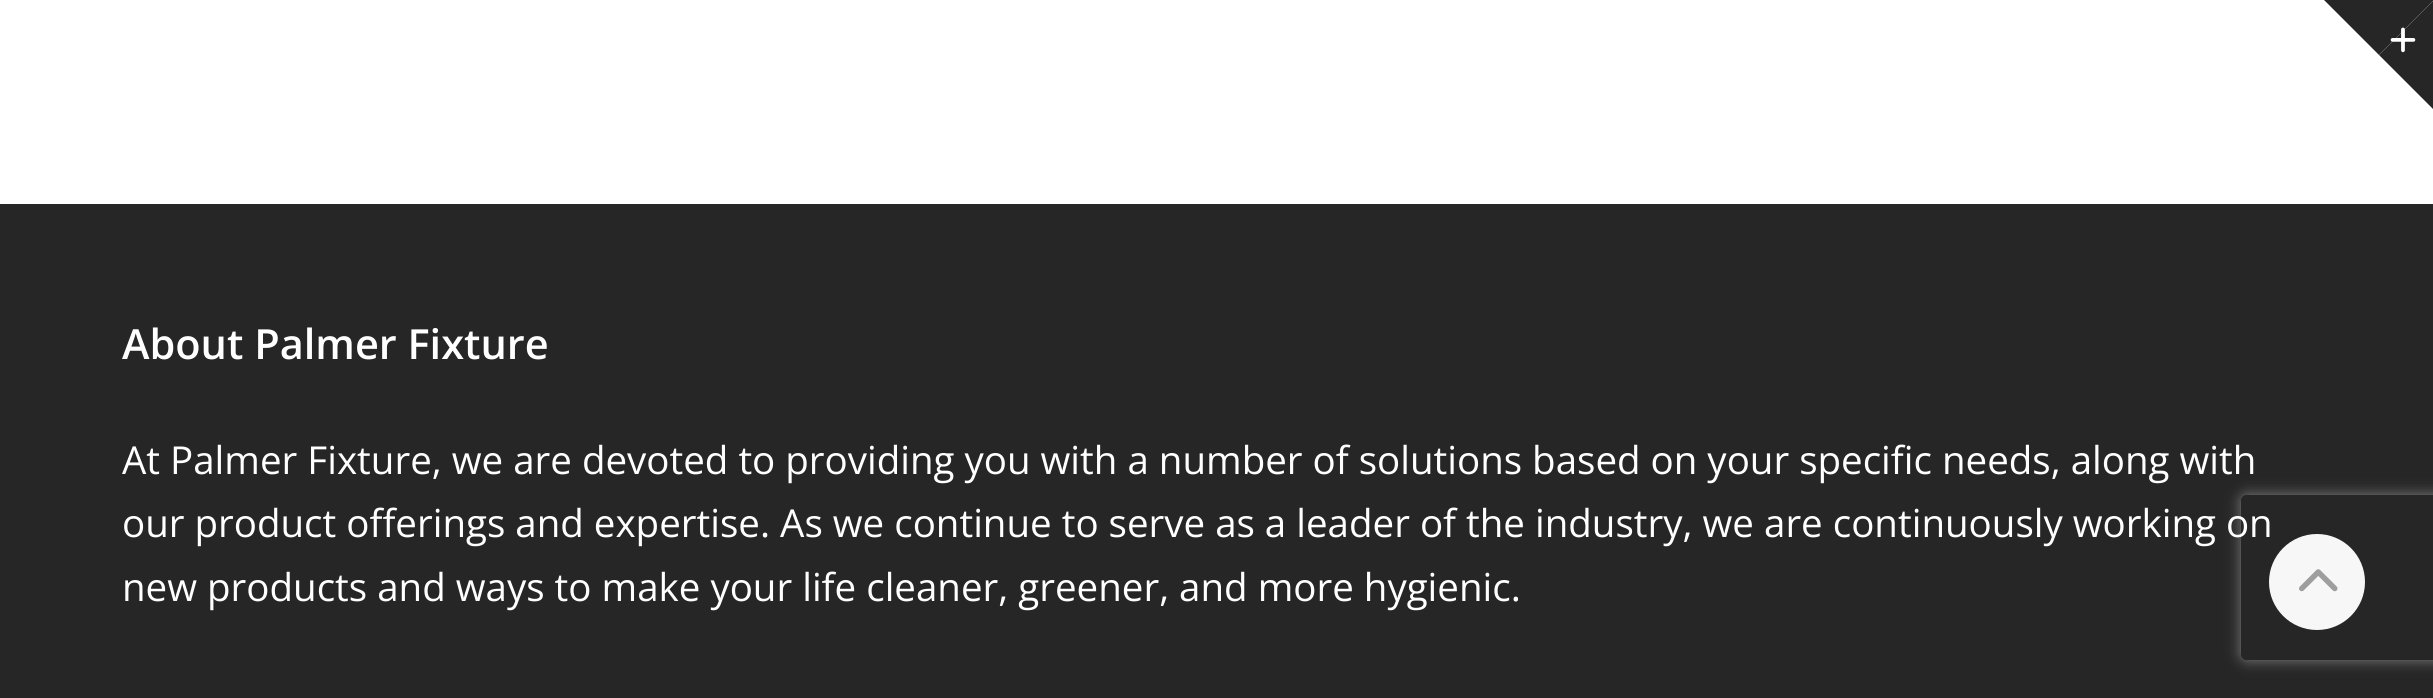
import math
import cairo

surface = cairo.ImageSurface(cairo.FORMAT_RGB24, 2433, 698)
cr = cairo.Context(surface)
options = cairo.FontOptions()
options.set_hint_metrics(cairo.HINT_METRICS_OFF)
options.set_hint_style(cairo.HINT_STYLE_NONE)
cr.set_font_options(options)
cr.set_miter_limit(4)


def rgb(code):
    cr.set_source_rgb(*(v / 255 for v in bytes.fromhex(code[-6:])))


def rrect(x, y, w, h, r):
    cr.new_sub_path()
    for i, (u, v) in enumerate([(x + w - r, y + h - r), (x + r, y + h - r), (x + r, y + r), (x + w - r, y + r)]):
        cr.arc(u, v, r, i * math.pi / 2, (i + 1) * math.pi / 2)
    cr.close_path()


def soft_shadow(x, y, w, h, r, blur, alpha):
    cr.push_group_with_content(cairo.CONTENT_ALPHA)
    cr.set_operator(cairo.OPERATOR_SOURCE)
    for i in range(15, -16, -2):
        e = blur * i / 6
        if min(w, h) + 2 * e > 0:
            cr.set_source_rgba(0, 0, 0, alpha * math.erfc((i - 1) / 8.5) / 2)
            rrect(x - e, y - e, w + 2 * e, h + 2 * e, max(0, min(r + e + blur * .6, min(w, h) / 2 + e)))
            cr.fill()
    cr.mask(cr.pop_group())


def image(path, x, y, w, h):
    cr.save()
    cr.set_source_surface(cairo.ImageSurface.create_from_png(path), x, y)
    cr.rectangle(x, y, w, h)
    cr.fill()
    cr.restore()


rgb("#ffffff")
cr.paint()
rgb("#262626")
cr.new_path()
cr.move_to(2324, 0)
cr.line_to(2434, 0)
cr.line_to(2379, 55)
cr.close_path()
cr.fill()
cr.new_path()
cr.move_to(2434, 0)
cr.line_to(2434, 110)
cr.line_to(2379, 55)
cr.close_path()
cr.fill()
image("img/1.png", 2390, 27, 26, 26)
cr.rectangle(0, 204, 2433, 494)
cr.fill()
cr.save()
cr.set_fill_rule(cairo.FILL_RULE_EVEN_ODD)
cr.new_path()
cr.move_to(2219, 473)
cr.line_to(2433, 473)
cr.line_to(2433, 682)
cr.line_to(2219, 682)
cr.close_path()
cr.move_to(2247, 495)
cr.line_to(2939, 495)
cr.curve_to(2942.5, 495, 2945, 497.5, 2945, 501)
cr.line_to(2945, 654)
cr.curve_to(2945, 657.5, 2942.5, 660, 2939, 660)
cr.line_to(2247, 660)
cr.curve_to(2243.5, 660, 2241, 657.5, 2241, 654)
cr.line_to(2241, 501)
cr.curve_to(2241, 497.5, 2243.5, 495, 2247, 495)
cr.close_path()
cr.clip()
rgb("#808080")
soft_shadow(2241, 495, 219, 165, 6, 7, 1)
cr.restore()
cr.select_font_face("Open Sans SemiBold")
cr.set_font_size(41.5)
rgb("#ffffff")
cr.move_to(122, 359)
cr.show_text("About Palmer Fixture")
cr.select_font_face("Open Sans")
cr.set_font_size(38.5)
for x, y, s in [
    (122, 474, "At Palmer Fixture, we are devoted to providing you with a number of solutions based on your specific needs, along with"),
    (122, 537, "our product offerings and expertise. As we continue to serve as a leader of the industry, we are continuously working on"),
    (122, 601, "new products and ways to make your life cleaner, greener, and more hygienic."),
]:
    cr.move_to(x, y)
    cr.show_text(s)
rgb("#f7f7f7")
cr.new_path()
cr.arc(2317, 582, 48, 0, 2 * math.pi)
cr.fill()
image("img/2.png", 2299, 569, 39, 23)
surface.write_to_png("page.png")
